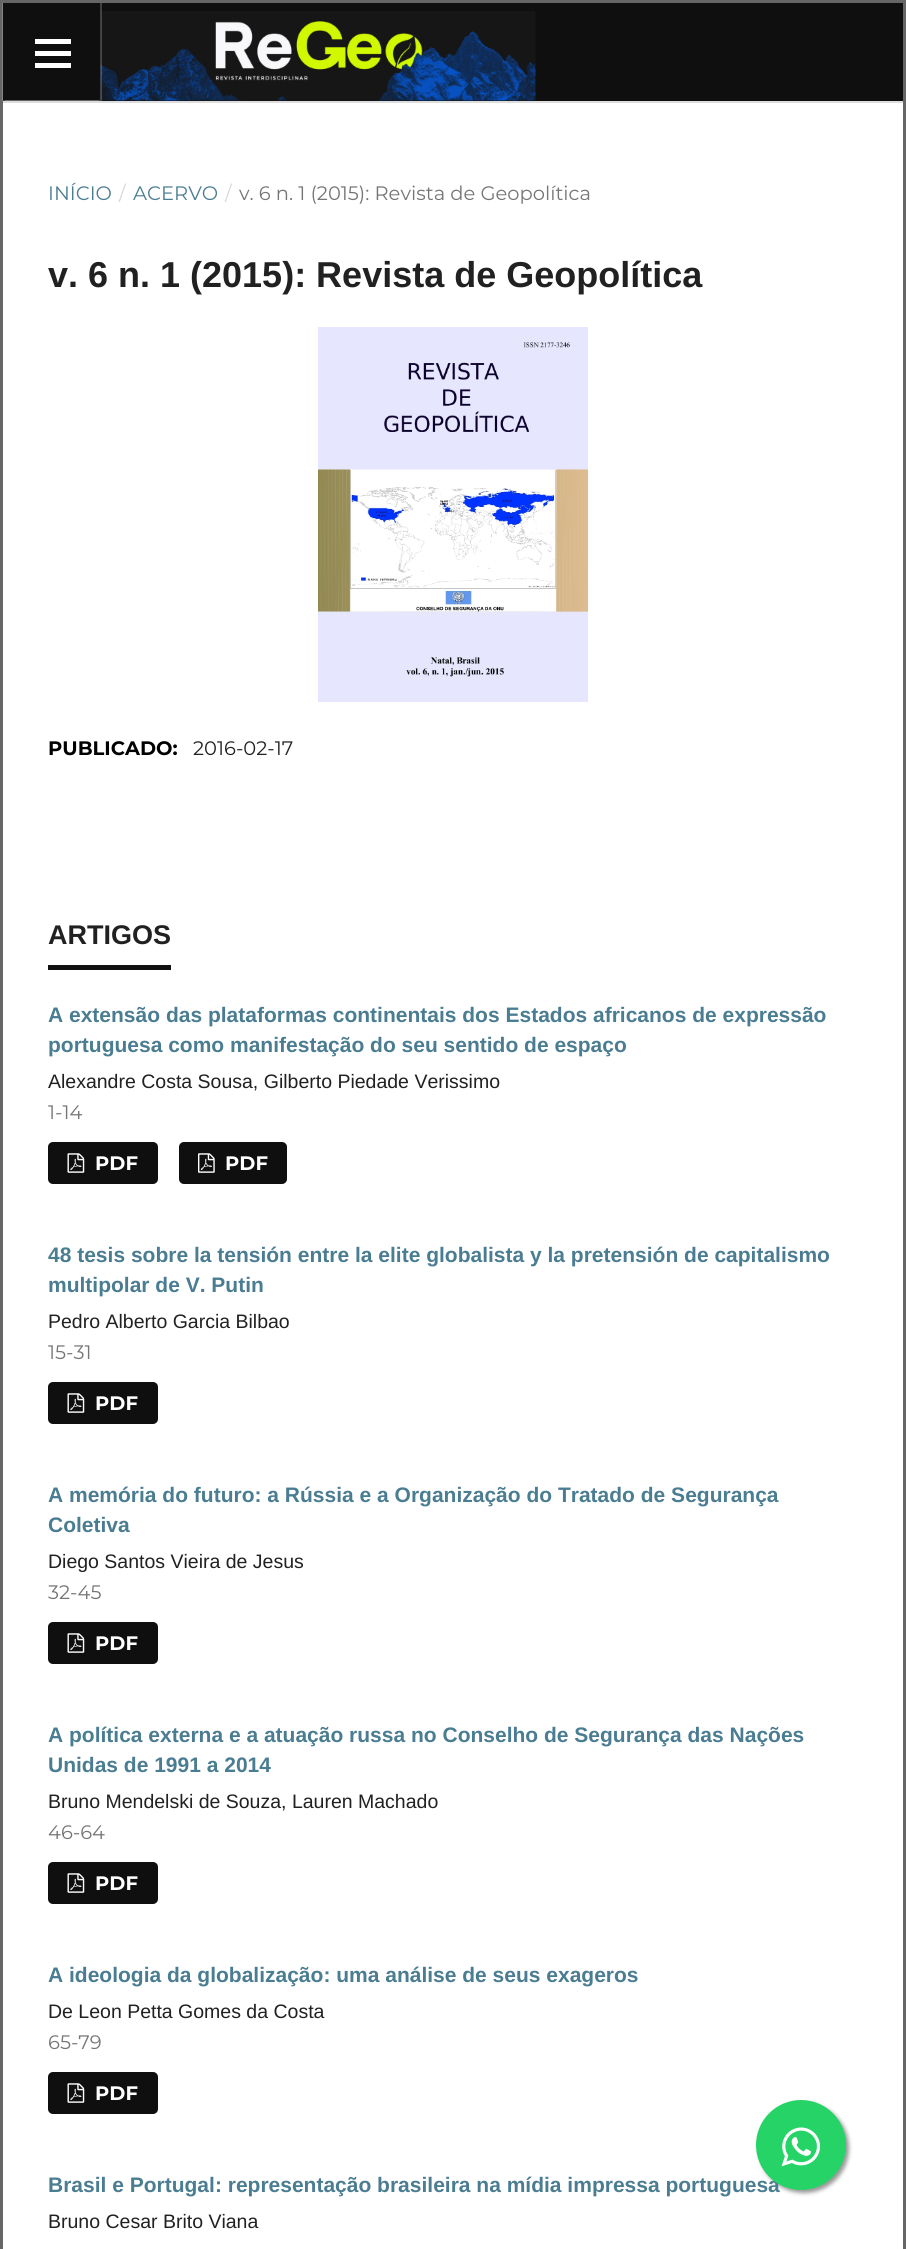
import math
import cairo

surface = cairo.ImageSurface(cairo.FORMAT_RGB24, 906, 2249)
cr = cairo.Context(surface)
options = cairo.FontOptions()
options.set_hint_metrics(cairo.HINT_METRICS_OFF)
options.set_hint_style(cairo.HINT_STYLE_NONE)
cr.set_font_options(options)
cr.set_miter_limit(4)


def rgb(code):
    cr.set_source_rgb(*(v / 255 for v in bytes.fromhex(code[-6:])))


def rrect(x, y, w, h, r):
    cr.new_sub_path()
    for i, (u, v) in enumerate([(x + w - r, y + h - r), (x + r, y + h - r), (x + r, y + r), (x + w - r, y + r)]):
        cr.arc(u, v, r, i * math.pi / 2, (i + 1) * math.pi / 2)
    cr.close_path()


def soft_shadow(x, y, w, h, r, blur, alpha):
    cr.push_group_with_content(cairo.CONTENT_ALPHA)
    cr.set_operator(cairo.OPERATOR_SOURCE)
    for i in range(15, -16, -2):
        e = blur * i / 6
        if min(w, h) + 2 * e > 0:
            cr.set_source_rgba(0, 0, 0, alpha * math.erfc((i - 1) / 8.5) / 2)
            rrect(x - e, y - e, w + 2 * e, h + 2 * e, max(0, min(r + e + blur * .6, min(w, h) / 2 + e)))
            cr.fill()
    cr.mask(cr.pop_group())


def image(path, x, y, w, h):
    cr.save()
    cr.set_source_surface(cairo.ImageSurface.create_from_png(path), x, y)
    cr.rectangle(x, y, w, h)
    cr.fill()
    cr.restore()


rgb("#ffffff")
cr.paint()
cr.rectangle(1.5, 1.5, 903, 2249)
rgb("#666666")
cr.set_line_width(3)
cr.stroke()
rgb("#0f0f0f")
cr.rectangle(3, 3, 900, 98)
cr.fill()
rgb("#dddddd")
cr.rectangle(3, 101, 900, 2)
cr.fill()
cr.set_source_rgba(1, 1, 1, 0.2)
cr.new_path()
cr.move_to(2, 3)
cr.line_to(2, 101)
cr.line_to(99, 101)
cr.line_to(99, 100)
cr.line_to(3, 100)
cr.line_to(3, 3)
cr.close_path()
cr.fill()
image("img/1.png", 100, 11, 436, 90)
cr.new_path()
cr.move_to(5, 100)
cr.line_to(5, 101)
cr.line_to(102, 101)
cr.line_to(102, 3)
cr.line_to(100, 3)
cr.line_to(100, 100)
cr.close_path()
cr.fill()
for x, y, w, h, color in [
    (35, 63, 36, 5, "#ffffff"),
    (35, 39, 36, 5, "#ffffff"),
    (35, 51, 36, 5, "#ffffff"),
]:
    rgb(color)
    cr.rectangle(x, y, w, h)
    cr.fill()
image("img/2.png", 318, 327, 270, 375)
rgb("#111111")
cr.rectangle(48, 965, 123, 5)
cr.fill()
rgb("#0f0f0f")
rrect(48, 1142, 110, 42, 5)
cr.fill()
image("img/3.png", 67, 1153, 18, 20)
rrect(179, 1142, 108, 42, 5)
cr.fill()
image("img/4.png", 198, 1153, 17, 20)
rrect(48, 1382, 110, 42, 5)
cr.fill()
image("img/3.png", 67, 1393, 18, 20)
rrect(48, 1622, 110, 42, 5)
cr.fill()
image("img/3.png", 67, 1633, 18, 20)
rrect(48, 1862, 110, 42, 5)
cr.fill()
image("img/3.png", 67, 1873, 18, 20)
rrect(48, 2072, 110, 42, 5)
cr.fill()
image("img/3.png", 67, 2083, 18, 20)
rgb("#999999")
soft_shadow(759, 2103, 90, 90, 45, 2, 1)
cr.select_font_face("Montserrat")
cr.set_font_size(19.5)
rgb("#4b7d92")
cr.move_to(48, 200)
cr.show_text("INÍCIO")
rgb("#d6d6d6")
cr.move_to(119, 200)
cr.show_text("/")
rgb("#4b7d92")
cr.move_to(133, 200)
cr.show_text("ACERVO")
rgb("#d6d6d6")
cr.move_to(225, 200)
cr.show_text("/")
rgb("#757575")
cr.move_to(239, 200)
cr.show_text("v. 6 n. 1 (2015): Revista de Geopolítica")
cr.select_font_face("Liberation Sans", cairo.FONT_SLANT_NORMAL, cairo.FONT_WEIGHT_BOLD)
cr.set_font_size(36)
rgb("#212121")
cr.move_to(48, 287)
cr.show_text("v. 6 n. 1 (2015): Revista de Geopolítica")
cr.select_font_face("Montserrat", cairo.FONT_SLANT_NORMAL, cairo.FONT_WEIGHT_BOLD)
cr.set_font_size(19.5)
rgb("#000000")
cr.move_to(48, 755)
cr.show_text("PUBLICADO:")
cr.select_font_face("Montserrat")
rgb("#212121")
cr.move_to(193, 755)
cr.show_text("2016-02-17")
cr.select_font_face("Liberation Sans", cairo.FONT_SLANT_NORMAL, cairo.FONT_WEIGHT_BOLD)
cr.set_font_size(27)
cr.move_to(48, 944)
cr.show_text("ARTIGOS")
cr.set_font_size(21)
rgb("#4b7d92")
cr.move_to(48, 1022)
cr.show_text("A extensão das plataformas continentais dos Estados africanos de expressão")
cr.move_to(48, 1052)
cr.show_text("portuguesa como manifestação do seu sentido de espaço")
cr.select_font_face("Liberation Sans")
cr.set_font_size(19.5)
rgb("#212121")
cr.move_to(48, 1088)
cr.show_text("Alexandre Costa Sousa, Gilberto Piedade Verissimo")
cr.select_font_face("Montserrat")
rgb("#757575")
cr.move_to(48, 1119)
cr.show_text("1-14")
cr.select_font_face("Montserrat", cairo.FONT_SLANT_NORMAL, cairo.FONT_WEIGHT_BOLD)
rgb("#ffffff")
cr.move_to(95, 1170)
cr.show_text("PDF")
cr.move_to(225, 1170)
cr.show_text("PDF")
cr.select_font_face("Liberation Sans", cairo.FONT_SLANT_NORMAL, cairo.FONT_WEIGHT_BOLD)
cr.set_font_size(21)
rgb("#4b7d92")
cr.move_to(48, 1262)
cr.show_text("48 tesis sobre la tensión entre la elite globalista y la pretensión de capitalismo")
cr.move_to(48, 1292)
cr.show_text("multipolar de V. Putin")
cr.select_font_face("Liberation Sans")
cr.set_font_size(19.5)
rgb("#212121")
cr.move_to(48, 1328)
cr.show_text("Pedro Alberto Garcia Bilbao")
cr.select_font_face("Montserrat")
rgb("#757575")
cr.move_to(48, 1359)
cr.show_text("15-31")
cr.select_font_face("Montserrat", cairo.FONT_SLANT_NORMAL, cairo.FONT_WEIGHT_BOLD)
rgb("#ffffff")
cr.move_to(95, 1410)
cr.show_text("PDF")
cr.select_font_face("Liberation Sans", cairo.FONT_SLANT_NORMAL, cairo.FONT_WEIGHT_BOLD)
cr.set_font_size(21)
rgb("#4b7d92")
cr.move_to(48, 1502)
cr.show_text("A memória do futuro: a Rússia e a Organização do Tratado de Segurança")
cr.move_to(48, 1532)
cr.show_text("Coletiva")
cr.select_font_face("Liberation Sans")
cr.set_font_size(19.5)
rgb("#212121")
cr.move_to(48, 1568)
cr.show_text("Diego Santos Vieira de Jesus")
cr.select_font_face("Montserrat")
rgb("#757575")
cr.move_to(48, 1599)
cr.show_text("32-45")
cr.select_font_face("Montserrat", cairo.FONT_SLANT_NORMAL, cairo.FONT_WEIGHT_BOLD)
rgb("#ffffff")
cr.move_to(95, 1650)
cr.show_text("PDF")
cr.select_font_face("Liberation Sans", cairo.FONT_SLANT_NORMAL, cairo.FONT_WEIGHT_BOLD)
cr.set_font_size(21)
rgb("#4b7d92")
cr.move_to(48, 1742)
cr.show_text("A política externa e a atuação russa no Conselho de Segurança das Nações")
cr.move_to(48, 1772)
cr.show_text("Unidas de 1991 a 2014")
cr.select_font_face("Liberation Sans")
cr.set_font_size(19.5)
rgb("#212121")
cr.move_to(48, 1808)
cr.show_text("Bruno Mendelski de Souza, Lauren Machado")
cr.select_font_face("Montserrat")
rgb("#757575")
cr.move_to(48, 1839)
cr.show_text("46-64")
cr.select_font_face("Montserrat", cairo.FONT_SLANT_NORMAL, cairo.FONT_WEIGHT_BOLD)
rgb("#ffffff")
cr.move_to(95, 1890)
cr.show_text("PDF")
cr.select_font_face("Liberation Sans", cairo.FONT_SLANT_NORMAL, cairo.FONT_WEIGHT_BOLD)
cr.set_font_size(21)
rgb("#4b7d92")
cr.move_to(48, 1982)
cr.show_text("A ideologia da globalização: uma análise de seus exageros")
cr.select_font_face("Liberation Sans")
cr.set_font_size(19.5)
rgb("#212121")
cr.move_to(48, 2018)
cr.show_text("De Leon Petta Gomes da Costa")
cr.select_font_face("Montserrat")
rgb("#757575")
cr.move_to(48, 2049)
cr.show_text("65-79")
cr.select_font_face("Montserrat", cairo.FONT_SLANT_NORMAL, cairo.FONT_WEIGHT_BOLD)
rgb("#ffffff")
cr.move_to(95, 2100)
cr.show_text("PDF")
cr.select_font_face("Liberation Sans", cairo.FONT_SLANT_NORMAL, cairo.FONT_WEIGHT_BOLD)
cr.set_font_size(21)
rgb("#4b7d92")
cr.move_to(48, 2192)
cr.show_text("Brasil e Portugal: representação brasileira na mídia impressa portuguesa")
cr.select_font_face("Liberation Sans")
cr.set_font_size(19.5)
rgb("#212121")
cr.move_to(48, 2228)
cr.show_text("Bruno Cesar Brito Viana")
rgb("#25d366")
cr.new_path()
cr.arc(801, 2145, 45, 0, 2 * math.pi)
cr.fill()
image("img/5.png", 781, 2127, 40, 40)
surface.write_to_png("page.png")
